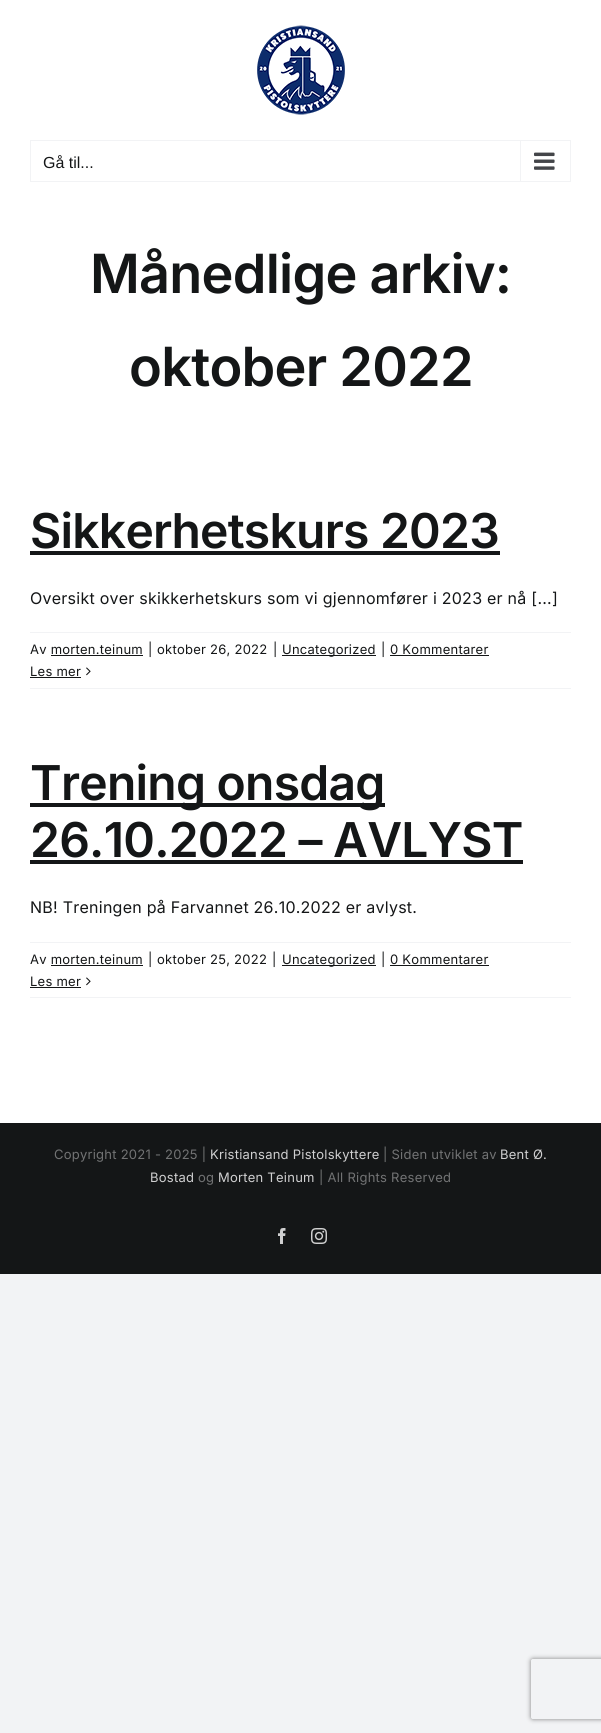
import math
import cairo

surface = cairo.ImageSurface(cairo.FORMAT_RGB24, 601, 1733)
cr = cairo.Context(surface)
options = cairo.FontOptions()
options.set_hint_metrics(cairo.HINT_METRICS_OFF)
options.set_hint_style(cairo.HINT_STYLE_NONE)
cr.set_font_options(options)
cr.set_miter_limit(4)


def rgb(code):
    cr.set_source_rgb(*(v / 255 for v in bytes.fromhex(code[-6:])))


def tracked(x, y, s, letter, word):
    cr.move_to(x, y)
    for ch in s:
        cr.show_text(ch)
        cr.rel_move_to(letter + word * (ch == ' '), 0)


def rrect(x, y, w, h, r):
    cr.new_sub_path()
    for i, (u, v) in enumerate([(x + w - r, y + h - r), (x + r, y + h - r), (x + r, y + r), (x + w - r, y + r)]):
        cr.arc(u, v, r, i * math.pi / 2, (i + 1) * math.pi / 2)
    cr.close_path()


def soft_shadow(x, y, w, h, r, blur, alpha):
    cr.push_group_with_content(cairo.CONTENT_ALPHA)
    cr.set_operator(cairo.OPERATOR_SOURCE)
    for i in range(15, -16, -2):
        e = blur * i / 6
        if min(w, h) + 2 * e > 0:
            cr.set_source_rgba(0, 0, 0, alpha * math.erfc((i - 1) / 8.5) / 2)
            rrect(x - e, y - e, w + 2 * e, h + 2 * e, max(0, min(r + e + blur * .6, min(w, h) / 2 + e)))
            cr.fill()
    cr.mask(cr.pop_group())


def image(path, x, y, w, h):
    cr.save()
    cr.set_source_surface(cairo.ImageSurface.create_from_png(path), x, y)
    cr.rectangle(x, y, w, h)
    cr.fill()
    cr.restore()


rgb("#f2f3f5")
cr.paint()
rgb("#ffffff")
cr.rectangle(0, 0, 601, 1123)
cr.fill()
image("img/1.png", 257, 25, 88, 90)
cr.rectangle(30.5, 140.5, 540, 41)
rgb("#f2f3f5")
cr.set_line_width(1)
cr.stroke()
cr.rectangle(520, 141, 1, 40)
cr.fill()
image("img/2.png", 534, 152, 21, 18)
for x, y, w, h, color in [
    (30, 551, 470, 4, "#141617"),
    (30, 632, 541, 1, "#f2f3f5"),
    (30, 688, 541, 1, "#f2f3f5"),
    (282, 655, 94, 1, "#141617"),
    (390, 655, 99, 1, "#141617"),
    (51, 655, 92, 1, "#141617"),
    (30, 677, 51, 1, "#141617"),
]:
    rgb(color)
    cr.rectangle(x, y, w, h)
    cr.fill()
image("img/3.png", 86, 667, 5, 9)
for x, y, w, h, color in [
    (30, 803, 355, 4, "#141617"),
    (30, 860, 493, 4, "#141617"),
    (30, 942, 541, 1, "#f2f3f5"),
    (30, 997, 541, 1, "#f2f3f5"),
    (282, 965, 94, 1, "#141617"),
    (390, 965, 99, 1, "#141617"),
    (51, 965, 92, 1, "#141617"),
    (30, 987, 51, 1, "#141617"),
]:
    rgb(color)
    cr.rectangle(x, y, w, h)
    cr.fill()
image("img/3.png", 86, 977, 5, 9)
cr.rectangle(0, 1123, 601, 151)
cr.fill()
image("img/4.png", 278, 1228, 8, 16)
image("img/5.png", 311, 1228, 16, 16)
cr.save()
cr.set_fill_rule(cairo.FILL_RULE_EVEN_ODD)
cr.new_path()
cr.move_to(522, 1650)
cr.line_to(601, 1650)
cr.line_to(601, 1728)
cr.line_to(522, 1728)
cr.close_path()
cr.move_to(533, 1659)
cr.line_to(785, 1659)
cr.curve_to(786, 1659, 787, 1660, 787, 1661)
cr.line_to(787, 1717)
cr.curve_to(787, 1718, 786, 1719, 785, 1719)
cr.line_to(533, 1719)
cr.curve_to(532, 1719, 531, 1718, 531, 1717)
cr.line_to(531, 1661)
cr.curve_to(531, 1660, 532, 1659, 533, 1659)
cr.close_path()
cr.clip()
rgb("#808080")
soft_shadow(531, 1659, 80, 60, 2, 2.5, 1)
cr.restore()
cr.select_font_face("Liberation Sans")
cr.set_font_size(16)
cr.move_to(43, 168)
cr.show_text("Gå til...")
cr.select_font_face("Inter SemiBold")
cr.set_font_size(54)
tracked(90, 293, "Månedlige arkiv:", -0.75, 0)
tracked(129, 386, "oktober 2022", -0.75, 0)
cr.set_font_size(48)
tracked(30, 548, "Sikkerhetskurs 2023", -0.75, 0)
cr.select_font_face("Inter")
cr.set_font_size(16)
tracked(30, 604, "Oversikt over skikkerhetskurs som vi gjennomfører i 2023 er nå [...]", 0.25, 0)
cr.set_font_size(13)
for x, y, s in [
    (30, 654, "Av morten.teinum"),
    (148, 654, "|"),
    (157, 654, "oktober 26, 2022"),
    (273, 654, "|"),
    (282, 654, "Uncategorized"),
    (381, 654, "|"),
    (390, 654, "0 Kommentarer"),
    (30, 676, "Les mer"),
]:
    tracked(x, y, s, 0.25, 0)
cr.select_font_face("Inter SemiBold")
cr.set_font_size(48)
tracked(30, 800, "Trening onsdag", -0.75, 0)
tracked(30, 857, "26.10.2022 – AVLYST", -0.75, 0)
cr.select_font_face("Inter")
cr.set_font_size(16)
tracked(30, 913, "NB! Treningen på Farvannet 26.10.2022 er avlyst.", 0.25, 0)
cr.set_font_size(13)
for x, y, s in [
    (30, 964, "Av morten.teinum"),
    (148, 964, "|"),
    (157, 964, "oktober 25, 2022"),
    (272, 964, "|"),
    (282, 964, "Uncategorized"),
    (381, 964, "|"),
    (390, 964, "0 Kommentarer"),
    (30, 986, "Les mer"),
]:
    tracked(x, y, s, 0.25, 0)
rgb("#727374")
tracked(54, 1159, "Copyright 2021 - 2025 |", 0.25, 0)
rgb("#d0d0d1")
tracked(210, 1159, "Kristiansand Pistolskyttere", 0.25, 0)
rgb("#727374")
tracked(383, 1159, "| Siden utviklet av", 0.25, 0)
rgb("#d0d0d1")
tracked(500, 1159, "Bent Ø.", 0.25, 0)
tracked(150, 1182, "Bostad", 0.25, 0)
rgb("#727374")
tracked(198, 1182, "og", 0.25, 0)
rgb("#d0d0d1")
tracked(218, 1182, "Morten Teinum", 0.25, 0)
rgb("#727374")
tracked(319, 1182, "| All Rights Reserved", 0.25, 0)
surface.write_to_png("page.png")
